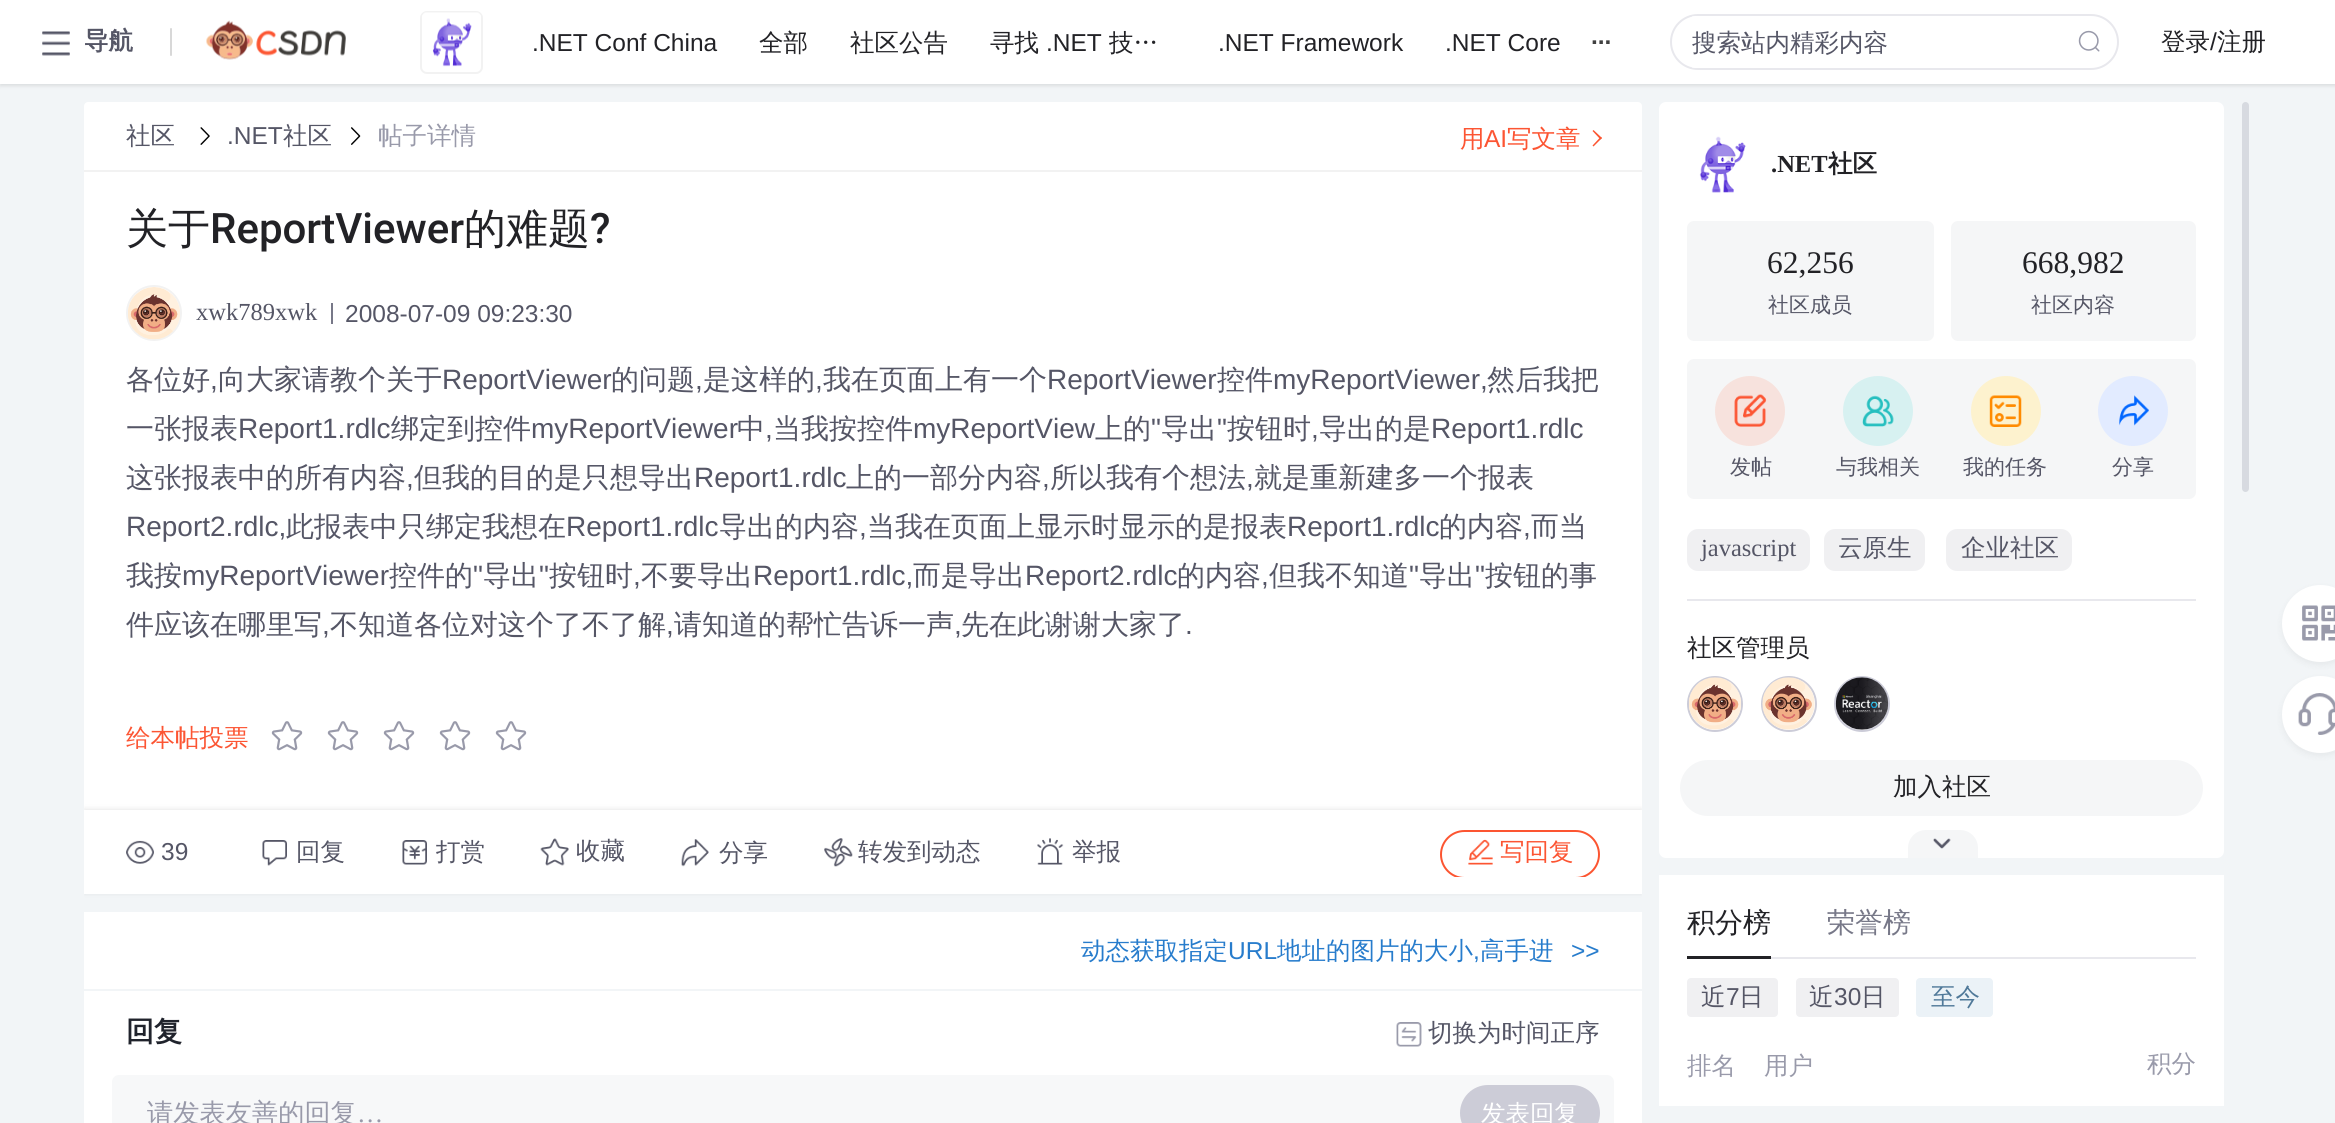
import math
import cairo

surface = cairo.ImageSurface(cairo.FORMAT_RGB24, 2335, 1123)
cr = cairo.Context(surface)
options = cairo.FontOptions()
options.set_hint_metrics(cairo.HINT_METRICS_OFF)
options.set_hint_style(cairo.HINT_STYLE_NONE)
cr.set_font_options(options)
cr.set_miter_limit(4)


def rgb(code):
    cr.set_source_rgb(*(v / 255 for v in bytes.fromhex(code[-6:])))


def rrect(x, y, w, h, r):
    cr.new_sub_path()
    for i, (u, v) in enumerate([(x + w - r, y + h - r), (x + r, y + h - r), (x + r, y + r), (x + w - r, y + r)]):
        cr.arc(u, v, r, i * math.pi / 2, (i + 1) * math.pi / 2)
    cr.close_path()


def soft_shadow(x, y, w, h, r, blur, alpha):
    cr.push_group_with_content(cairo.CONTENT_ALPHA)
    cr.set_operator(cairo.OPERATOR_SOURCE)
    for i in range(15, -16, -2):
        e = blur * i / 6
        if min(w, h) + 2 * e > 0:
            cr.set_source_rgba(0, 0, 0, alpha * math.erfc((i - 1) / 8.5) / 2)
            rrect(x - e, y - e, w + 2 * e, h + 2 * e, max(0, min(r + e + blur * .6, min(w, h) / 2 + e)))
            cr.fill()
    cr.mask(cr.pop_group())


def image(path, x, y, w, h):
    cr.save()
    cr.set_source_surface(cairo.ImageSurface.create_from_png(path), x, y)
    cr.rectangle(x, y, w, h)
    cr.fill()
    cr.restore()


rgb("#f2f5f7")
cr.paint()
rgb("#000000")
soft_shadow(0, 2, 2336, 84, 0, 2, 0.1)
rgb("#ffffff")
cr.rectangle(0, 0, 2335, 84)
cr.fill()
image("img/1.png", 42, 31, 28, 25)
rgb("#d8d8d8")
rrect(170, 28, 2, 28, 1)
cr.fill()
image("img/2.png", 206, 20, 140, 40)
rrect(421, 12, 61, 61, 6)
rgb("#f2f2f2")
cr.stroke()
image("img/3.png", 422, 12, 59, 55)
rrect(1671, 15, 447, 54, 27)
rgb("#e8e8ed")
cr.stroke()
cr.save()
rrect(1671, 16, 447, 52, 26)
cr.clip()
rgb("#ffffff")
cr.rectangle(1692, 16, 380, 52)
cr.fill()
cr.restore()
image("img/4.png", 2078, 30, 22, 22)
rgb("#ffffff")
cr.new_path()
cr.move_to(88, 102)
cr.line_to(1638, 102)
cr.curve_to(1640, 102, 1642, 104, 1642, 106)
cr.line_to(1642, 172)
cr.line_to(84, 172)
cr.line_to(84, 106)
cr.curve_to(84, 104, 86, 102, 88, 102)
cr.close_path()
cr.fill()
rgb("#f2f2f2")
cr.rectangle(84, 170, 1558, 2)
cr.fill()
image("img/5.png", 200, 127, 10, 18)
image("img/6.png", 351, 127, 10, 18)
rgb("#fc5531")
cr.new_path()
cr.move_to(1592.5, 131)
cr.line_to(1593.5, 130)
cr.line_to(1602, 138)
cr.line_to(1600.5, 139.5)
cr.close_path()
cr.fill()
cr.new_path()
cr.move_to(1592.5, 145.5)
cr.line_to(1600.5, 137)
cr.line_to(1602, 138)
cr.line_to(1593.5, 146.5)
cr.close_path()
cr.fill()
rgb("#ffffff")
cr.rectangle(84, 172, 1558, 638)
cr.fill()
cr.arc(154, 313, 27, 0, 2 * math.pi)
rgb("#f2f2f2")
cr.stroke()
image("img/7.png", 128, 287, 52, 53)
rgb("#777888")
cr.rectangle(331, 303, 2, 21)
cr.fill()
image("img/8.png", 271, 721, 32, 30)
image("img/8.png", 327, 721, 32, 30)
image("img/8.png", 383, 721, 32, 30)
image("img/8.png", 439, 721, 32, 30)
image("img/8.png", 495, 721, 32, 30)
cr.save()
rrect(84, 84, 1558, 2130, 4)
cr.clip()
rgb("#121212")
soft_shadow(84, 809, 1558, 84, 0, 2.5, 0.1)
cr.restore()
rgb("#ffffff")
cr.rectangle(84, 810, 1558, 84)
cr.fill()
image("img/9.png", 126, 840, 28, 24)
image("img/10.png", 262, 840, 25, 26)
image("img/11.png", 402, 840, 25, 25)
image("img/12.png", 540, 838, 29, 28)
image("img/13.png", 681, 839, 28, 28)
image("img/14.png", 824, 838, 29, 29)
image("img/15.png", 1037, 838, 27, 27)
cr.save()
cr.rectangle(84, 828, 1558, 49)
cr.clip()
rrect(1441, 831, 158, 47, 23.5)
rgb("#fc5531")
cr.stroke()
cr.restore()
image("img/16.png", 1468, 839, 25, 26)
cr.rectangle(84, 912, 1558, 77)
cr.fill()
cr.rectangle(84, 991, 1558, 132)
cr.fill()
image("img/17.png", 1396, 1022, 26, 25)
rgb("#f7f8f9")
rrect(112, 1075, 1502, 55, 7)
cr.fill()
rgb("#ccccd7")
rrect(1460, 1085, 140, 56, 28)
cr.fill()
rgb("#ffffff")
rrect(1659, 102, 565, 756, 7)
cr.fill()
image("img/18.png", 1699, 136, 47, 57)
rgb("#f5f6f7")
rrect(1687, 221, 247, 120, 7)
cr.fill()
rrect(1951, 221, 245, 120, 7)
cr.fill()
rrect(1687, 359, 509, 140, 7)
cr.fill()
rgb("#f7e2dd")
cr.arc(1750, 411, 35, 0, 2 * math.pi)
cr.fill()
image("img/19.png", 1734, 394, 33, 33)
rgb("#d7f1f1")
cr.arc(1878, 411, 35, 0, 2 * math.pi)
cr.fill()
image("img/20.png", 1862, 395, 32, 32)
rgb("#fdf2ce")
cr.arc(2006, 411, 35, 0, 2 * math.pi)
cr.fill()
image("img/21.png", 1989, 395, 33, 32)
rgb("#e2ebff")
cr.arc(2133, 411, 35, 0, 2 * math.pi)
cr.fill()
image("img/22.png", 2119, 395, 30, 31)
rgb("#f0f0f2")
rrect(1687, 529, 123, 42, 11)
cr.fill()
rrect(1824, 529, 101, 42, 11)
cr.fill()
rrect(1946, 529, 126, 42, 11)
cr.fill()
rgb("#e8e8ed")
cr.rectangle(1687, 599, 509, 2)
cr.fill()
cr.arc(1715, 704, 27, 0, 2 * math.pi)
rgb("#ccccd8")
cr.stroke()
image("img/23.png", 1689, 677, 52, 53)
cr.arc(1789, 704, 27, 0, 2 * math.pi)
cr.stroke()
image("img/24.png", 1762, 677, 53, 53)
cr.arc(1862, 704, 27, 0, 2 * math.pi)
cr.stroke()
image("img/25.png", 1835, 677, 54, 53)
rgb("#f5f6f7")
rrect(1680, 760, 523, 56, 28)
cr.fill()
cr.new_path()
cr.move_to(1926, 830)
cr.line_to(1960, 830)
cr.curve_to(1970, 830, 1978, 838, 1978, 848)
cr.line_to(1978, 858)
cr.line_to(1908, 858)
cr.line_to(1908, 848)
cr.curve_to(1908, 838, 1916, 830, 1926, 830)
cr.close_path()
cr.fill()
image("img/26.png", 1933, 838, 18, 11)
for x, y, w, h, color in [
    (1659, 875, 565, 231, "#ffffff"),
    (1687, 956, 84, 3, "#222226"),
    (1771, 957, 425, 2, "#e8e8ed"),
]:
    rgb(color)
    cr.rectangle(x, y, w, h)
    cr.fill()
rgb("#f0f0f2")
rrect(1687, 978, 91, 39, 4)
cr.fill()
rrect(1796, 978, 103, 39, 4)
cr.fill()
rgb("#ebf2f7")
rrect(1916, 978, 77, 39, 4)
cr.fill()
rgb("#d7dae0")
rrect(2242, 102, 7, 390, 3.5)
cr.fill()
rgb("#000000")
soft_shadow(2282, 588, 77, 77, 38.5, 3.5, 0.05)
rgb("#ffffff")
cr.arc(2320.5, 623.5, 38.5, 0, 2 * math.pi)
cr.fill()
image("img/27.png", 2302, 605, 33, 36)
rgb("#000000")
soft_shadow(2282, 679, 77, 77, 38.5, 3.5, 0.05)
rgb("#ffffff")
cr.arc(2320.5, 714.5, 38.5, 0, 2 * math.pi)
cr.fill()
image("img/28.png", 2298, 693, 37, 42)
cr.select_font_face("WenQuanYi Zen Hei", cairo.FONT_SLANT_NORMAL, cairo.FONT_WEIGHT_BOLD)
cr.set_font_size(24.5)
rgb("#555666")
cr.move_to(84, 49)
cr.show_text("导航")
cr.select_font_face("Liberation Sans")
rgb("#222226")
cr.move_to(532, 51)
cr.show_text(".NET Conf China")
cr.select_font_face("WenQuanYi Zen Hei Medium")
for x, y, s in [
    (759, 51, "全部"),
    (850, 51, "社区公告"),
    (990, 51, "寻找"),
]:
    cr.move_to(x, y)
    cr.show_text(s)
cr.select_font_face("Liberation Sans")
cr.move_to(1046, 51)
cr.show_text(".NET")
cr.select_font_face("WenQuanYi Zen Hei Medium")
cr.move_to(1109, 51)
cr.show_text("技…")
cr.select_font_face("Liberation Sans")
cr.move_to(1218, 51)
cr.show_text(".NET Framework")
cr.move_to(1445, 51)
cr.show_text(".NET Core")
cr.select_font_face("Liberation Sans", cairo.FONT_SLANT_NORMAL, cairo.FONT_WEIGHT_BOLD)
rgb("#404040")
cr.move_to(1591, 44)
cr.show_text("...")
cr.select_font_face("WenQuanYi Zen Hei Medium")
rgb("#555666")
cr.move_to(1692, 51)
cr.show_text("搜索站内精彩内容")
rgb("#222226")
cr.move_to(2161, 50)
cr.show_text("登录")
cr.select_font_face("Liberation Sans")
cr.move_to(2210, 50)
cr.show_text("/")
cr.select_font_face("WenQuanYi Zen Hei Medium")
cr.move_to(2217, 50)
cr.show_text("注册")
rgb("#555666")
cr.move_to(126, 144)
cr.show_text("社区")
cr.select_font_face("Liberation Sans")
cr.move_to(227, 144)
cr.show_text(".NET")
cr.select_font_face("WenQuanYi Zen Hei Medium")
cr.move_to(283, 144)
cr.show_text("社区")
rgb("#999aaa")
cr.move_to(378, 144)
cr.show_text("帖子详情")
rgb("#fc5533")
cr.move_to(1460, 147)
cr.show_text("用")
cr.select_font_face("Liberation Sans")
cr.move_to(1484, 147)
cr.show_text("AI")
cr.select_font_face("WenQuanYi Zen Hei Medium")
cr.move_to(1507, 147)
cr.show_text("写文章")
cr.set_font_size(42)
rgb("#222226")
cr.move_to(126, 243)
cr.show_text("关于")
cr.select_font_face("Roboto Medium")
cr.move_to(210, 243)
cr.show_text("ReportViewer")
cr.select_font_face("WenQuanYi Zen Hei Medium")
cr.move_to(464, 243)
cr.show_text("的难题")
cr.select_font_face("Roboto Medium")
cr.move_to(590, 243)
cr.show_text("?")
cr.select_font_face("Liberation Serif")
cr.set_font_size(24.5)
rgb("#555666")
cr.move_to(196, 320)
cr.show_text("xwk789xwk")
cr.select_font_face("Liberation Sans")
cr.move_to(345, 322)
cr.show_text("2008-07-09 09:23:30")
cr.select_font_face("WenQuanYi Zen Hei Medium")
cr.set_font_size(28)
cr.move_to(126, 389)
cr.show_text("各位好")
cr.select_font_face("Liberation Sans")
cr.move_to(210, 389)
cr.show_text(",")
cr.select_font_face("WenQuanYi Zen Hei Medium")
cr.move_to(218, 389)
cr.show_text("向大家请教个关于")
cr.select_font_face("Liberation Sans")
cr.move_to(442, 389)
cr.show_text("ReportViewer")
cr.select_font_face("WenQuanYi Zen Hei Medium")
cr.move_to(611, 389)
cr.show_text("的问题")
cr.select_font_face("Liberation Sans")
cr.move_to(695, 389)
cr.show_text(",")
cr.select_font_face("WenQuanYi Zen Hei Medium")
cr.move_to(703, 389)
cr.show_text("是这样的")
cr.select_font_face("Liberation Sans")
cr.move_to(815, 389)
cr.show_text(",")
cr.select_font_face("WenQuanYi Zen Hei Medium")
cr.move_to(823, 389)
cr.show_text("我在页面上有一个")
cr.select_font_face("Liberation Sans")
cr.move_to(1047, 389)
cr.show_text("ReportViewer")
cr.select_font_face("WenQuanYi Zen Hei Medium")
cr.move_to(1217, 389)
cr.show_text("控件")
cr.select_font_face("Liberation Sans")
cr.move_to(1273, 389)
cr.show_text("myReportViewer,")
cr.select_font_face("WenQuanYi Zen Hei Medium")
cr.move_to(1487, 389)
cr.show_text("然后我把")
cr.move_to(126, 438)
cr.show_text("一张报表")
cr.select_font_face("Liberation Sans")
cr.move_to(238, 438)
cr.show_text("Report1.rdlc")
cr.select_font_face("WenQuanYi Zen Hei Medium")
cr.move_to(391, 438)
cr.show_text("绑定到控件")
cr.select_font_face("Liberation Sans")
cr.move_to(531, 438)
cr.show_text("myReportViewer")
cr.select_font_face("WenQuanYi Zen Hei Medium")
cr.move_to(737, 438)
cr.show_text("中")
cr.move_to(773, 438)
cr.show_text("当我按控件")
cr.select_font_face("Liberation Sans")
cr.move_to(913, 438)
cr.show_text("myReportView")
cr.select_font_face("WenQuanYi Zen Hei Medium")
cr.move_to(1095, 438)
cr.show_text("上的")
cr.select_font_face("Liberation Sans")
cr.move_to(1151, 438)
cr.show_text("\"")
cr.select_font_face("WenQuanYi Zen Hei Medium")
cr.move_to(1161, 438)
cr.show_text("导出")
cr.select_font_face("Liberation Sans")
cr.move_to(1217, 438)
cr.show_text("\"")
cr.select_font_face("WenQuanYi Zen Hei Medium")
cr.move_to(1227, 438)
cr.show_text("按钮时")
cr.move_to(1319, 438)
cr.show_text("导出的是")
cr.select_font_face("Liberation Sans")
for x, y, s in [
    (1431, 438, "Report1.rdlc"),
    (765, 438, ","),
    (1311, 438, ","),
]:
    cr.move_to(x, y)
    cr.show_text(s)
cr.select_font_face("WenQuanYi Zen Hei Medium")
cr.move_to(126, 487)
cr.show_text("这张报表中的所有内容")
cr.select_font_face("Liberation Sans")
cr.move_to(406, 487)
cr.show_text(",")
cr.select_font_face("WenQuanYi Zen Hei Medium")
cr.move_to(414, 487)
cr.show_text("但我的目的是只想导出")
cr.select_font_face("Liberation Sans")
cr.move_to(694, 487)
cr.show_text("Report1.rdlc")
cr.select_font_face("WenQuanYi Zen Hei Medium")
cr.move_to(846, 487)
cr.show_text("上的一部分内容")
cr.select_font_face("Liberation Sans")
cr.move_to(1042, 487)
cr.show_text(",")
cr.select_font_face("WenQuanYi Zen Hei Medium")
cr.move_to(1050, 487)
cr.show_text("所以我有个想法")
cr.select_font_face("Liberation Sans")
cr.move_to(1246, 487)
cr.show_text(",")
cr.select_font_face("WenQuanYi Zen Hei Medium")
cr.move_to(1254, 487)
cr.show_text("就是重新建多一个报表")
cr.select_font_face("Liberation Sans")
cr.move_to(126, 536)
cr.show_text("Report2.rdlc,")
cr.select_font_face("WenQuanYi Zen Hei Medium")
cr.move_to(286, 536)
cr.show_text("此报表中只绑定我想在")
cr.select_font_face("Liberation Sans")
cr.move_to(566, 536)
cr.show_text("Report1.rdlc")
cr.select_font_face("WenQuanYi Zen Hei Medium")
cr.move_to(719, 536)
cr.show_text("导出的内容")
cr.select_font_face("Liberation Sans")
cr.move_to(859, 536)
cr.show_text(",")
cr.select_font_face("WenQuanYi Zen Hei Medium")
cr.move_to(867, 536)
cr.show_text("当我在页面上显示时显示的是报表")
cr.select_font_face("Liberation Sans")
cr.move_to(1287, 536)
cr.show_text("Report1.rdlc")
cr.select_font_face("WenQuanYi Zen Hei Medium")
cr.move_to(1439, 536)
cr.show_text("的内容")
cr.select_font_face("Liberation Sans")
cr.move_to(1523, 536)
cr.show_text(",")
cr.select_font_face("WenQuanYi Zen Hei Medium")
cr.move_to(1531, 536)
cr.show_text("而当")
cr.move_to(126, 585)
cr.show_text("我按")
cr.select_font_face("Liberation Sans")
cr.move_to(182, 585)
cr.show_text("myReportViewer")
cr.select_font_face("WenQuanYi Zen Hei Medium")
cr.move_to(389, 585)
cr.show_text("控件的")
cr.select_font_face("Liberation Sans")
cr.move_to(473, 585)
cr.show_text("\"")
cr.select_font_face("WenQuanYi Zen Hei Medium")
cr.move_to(483, 585)
cr.show_text("导出")
cr.select_font_face("Liberation Sans")
cr.move_to(539, 585)
cr.show_text("\"")
cr.select_font_face("WenQuanYi Zen Hei Medium")
cr.move_to(549, 585)
cr.show_text("按钮时")
cr.move_to(641, 585)
cr.show_text("不要导出")
cr.select_font_face("Liberation Sans")
cr.move_to(753, 585)
cr.show_text("Report1.rdlc,")
cr.select_font_face("WenQuanYi Zen Hei Medium")
cr.move_to(913, 585)
cr.show_text("而是导出")
cr.select_font_face("Liberation Sans")
cr.move_to(1025, 585)
cr.show_text("Report2.rdlc")
cr.select_font_face("WenQuanYi Zen Hei Medium")
cr.move_to(1177, 585)
cr.show_text("的内容")
cr.move_to(1269, 585)
cr.show_text("但我不知道")
cr.select_font_face("Liberation Sans")
cr.move_to(1409, 585)
cr.show_text("\"")
cr.select_font_face("WenQuanYi Zen Hei Medium")
cr.move_to(1419, 585)
cr.show_text("导出")
cr.select_font_face("Liberation Sans")
cr.move_to(1475, 585)
cr.show_text("\"")
cr.select_font_face("WenQuanYi Zen Hei Medium")
cr.move_to(1485, 585)
cr.show_text("按钮的事")
cr.select_font_face("Liberation Sans")
cr.move_to(633, 585)
cr.show_text(",")
cr.move_to(1261, 585)
cr.show_text(",")
cr.select_font_face("WenQuanYi Zen Hei Medium")
cr.move_to(126, 634)
cr.show_text("件应该在哪里写")
cr.select_font_face("Liberation Sans")
cr.move_to(322, 634)
cr.show_text(",")
cr.select_font_face("WenQuanYi Zen Hei Medium")
cr.move_to(330, 634)
cr.show_text("不知道各位对这个了不了解")
cr.select_font_face("Liberation Sans")
cr.move_to(666, 634)
cr.show_text(",")
cr.select_font_face("WenQuanYi Zen Hei Medium")
cr.move_to(674, 634)
cr.show_text("请知道的帮忙告诉一声")
cr.select_font_face("Liberation Sans")
cr.move_to(954, 634)
cr.show_text(",")
cr.select_font_face("WenQuanYi Zen Hei Medium")
cr.move_to(961, 634)
cr.show_text("先在此谢谢大家了")
cr.select_font_face("Liberation Sans")
cr.move_to(1185, 634)
cr.show_text(".")
cr.select_font_face("WenQuanYi Zen Hei Medium")
cr.set_font_size(24.5)
rgb("#fc5533")
cr.move_to(126, 746)
cr.show_text("给本帖投票")
cr.select_font_face("Liberation Sans")
rgb("#555666")
cr.move_to(161, 860)
cr.show_text("39")
cr.select_font_face("WenQuanYi Zen Hei Medium")
for x, y, s in [
    (296, 860, "回复"),
    (436, 860, "打赏"),
    (576, 859, "收藏"),
    (719, 861, "分享"),
    (858, 860, "转发到动态"),
    (1072, 860, "举报"),
]:
    cr.move_to(x, y)
    cr.show_text(s)
rgb("#fc5533")
cr.move_to(1500, 860)
cr.show_text("写回复")
rgb("#277ccc")
cr.move_to(1081, 959)
cr.show_text("动态获取指定")
cr.select_font_face("Liberation Sans")
cr.move_to(1228, 959)
cr.show_text("URL")
cr.select_font_face("WenQuanYi Zen Hei Medium")
cr.move_to(1277, 959)
cr.show_text("地址的图片的大小")
cr.select_font_face("Liberation Sans")
cr.move_to(1473, 959)
cr.show_text(",")
cr.select_font_face("WenQuanYi Zen Hei Medium")
cr.move_to(1480, 959)
cr.show_text("高手进")
cr.select_font_face("Liberation Sans")
cr.move_to(1571, 959)
cr.show_text(">>")
cr.select_font_face("WenQuanYi Zen Hei", cairo.FONT_SLANT_NORMAL, cairo.FONT_WEIGHT_BOLD)
cr.set_font_size(28)
rgb("#20232c")
cr.move_to(126, 1041)
cr.show_text("回复")
cr.select_font_face("WenQuanYi Zen Hei Medium")
cr.set_font_size(24.5)
rgb("#555666")
cr.move_to(1428, 1041)
cr.show_text("切换为时间正序")
cr.set_font_size(26.25)
rgb("#999aaa")
cr.move_to(147, 1122)
cr.show_text("请发表友善的回复")
cr.select_font_face("Liberation Serif")
cr.move_to(357, 1122)
cr.show_text("…")
cr.select_font_face("WenQuanYi Zen Hei Medium")
cr.set_font_size(24.5)
rgb("#ffffff")
cr.move_to(1481, 1122)
cr.show_text("发表回复")
cr.select_font_face("Liberation Serif", cairo.FONT_SLANT_NORMAL, cairo.FONT_WEIGHT_BOLD)
rgb("#222226")
cr.move_to(1771, 172)
cr.show_text(".NET")
cr.select_font_face("WenQuanYi Zen Hei", cairo.FONT_SLANT_NORMAL, cairo.FONT_WEIGHT_BOLD)
cr.move_to(1828, 172)
cr.show_text("社区")
cr.select_font_face("Liberation Serif")
cr.set_font_size(31.5)
cr.move_to(1767, 273)
cr.show_text("62,256")
cr.select_font_face("WenQuanYi Zen Hei Medium")
cr.set_font_size(21)
rgb("#555666")
cr.move_to(1768, 312)
cr.show_text("社区成员")
cr.select_font_face("Liberation Serif")
cr.set_font_size(31.5)
rgb("#222226")
cr.move_to(2022, 273)
cr.show_text("668,982")
cr.select_font_face("WenQuanYi Zen Hei Medium")
cr.set_font_size(21)
rgb("#555666")
for x, y, s in [
    (2031, 312, "社区内容"),
    (1730, 474, "发帖"),
    (1836, 474, "与我相关"),
    (1963, 474, "我的任务"),
    (2112, 474, "分享"),
]:
    cr.move_to(x, y)
    cr.show_text(s)
cr.select_font_face("Liberation Serif")
cr.set_font_size(24.5)
cr.move_to(1701, 556)
cr.show_text("javascript")
cr.select_font_face("WenQuanYi Zen Hei Medium")
cr.move_to(1838, 556)
cr.show_text("云原生")
cr.move_to(1961, 556)
cr.show_text("企业社区")
rgb("#222226")
cr.move_to(1687, 656)
cr.show_text("社区管理员")
cr.move_to(1893, 795)
cr.show_text("加入社区")
cr.set_font_size(28)
cr.move_to(1687, 932)
cr.show_text("积分榜")
rgb("#777888")
cr.move_to(1827, 932)
cr.show_text("荣誉榜")
cr.set_font_size(24.5)
rgb("#555666")
cr.move_to(1701, 1005)
cr.show_text("近")
cr.select_font_face("Liberation Sans")
cr.move_to(1726, 1005)
cr.show_text("7")
cr.select_font_face("WenQuanYi Zen Hei Medium")
cr.move_to(1739, 1005)
cr.show_text("日")
cr.move_to(1809, 1005)
cr.show_text("近")
cr.select_font_face("Liberation Sans")
cr.move_to(1834, 1005)
cr.show_text("30")
cr.select_font_face("WenQuanYi Zen Hei Medium")
cr.move_to(1861, 1005)
cr.show_text("日")
rgb("#507999")
cr.move_to(1931, 1005)
cr.show_text("至今")
rgb("#999aaa")
for x, y, s in [
    (1687, 1074, "排名"),
    (1764, 1074, "用户"),
    (2147, 1072, "积分"),
]:
    cr.move_to(x, y)
    cr.show_text(s)
surface.write_to_png("page.png")
